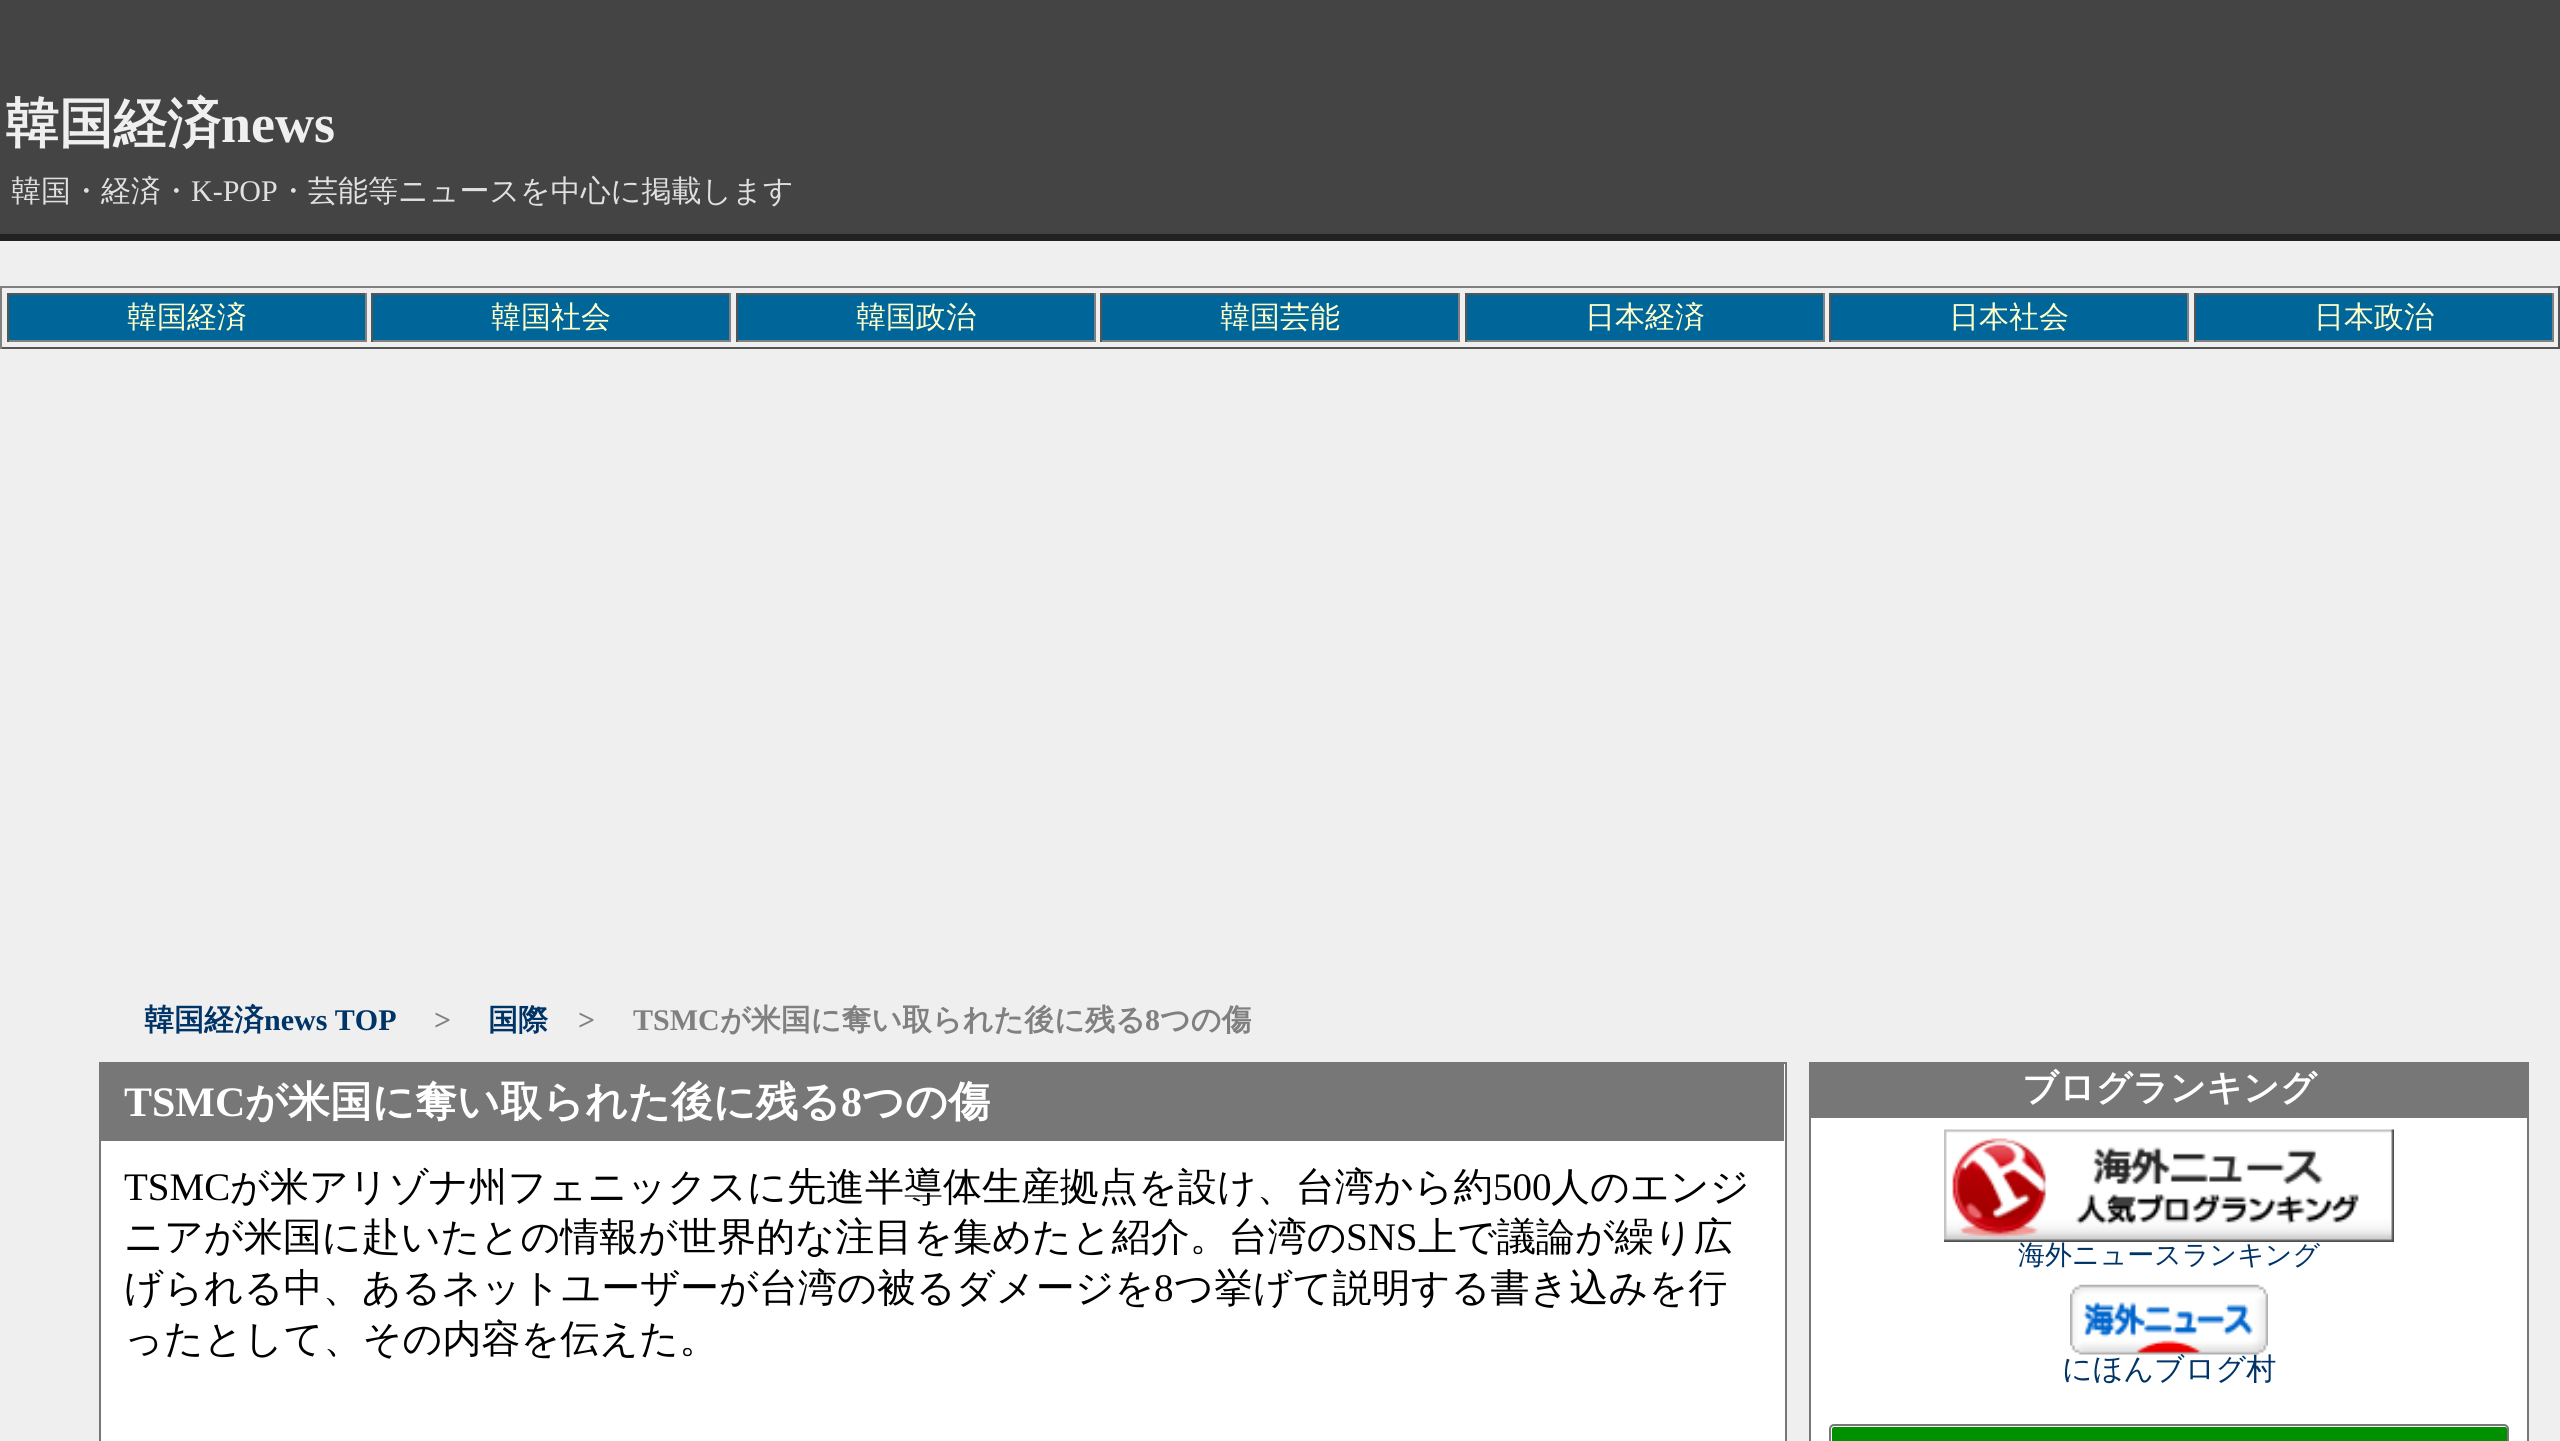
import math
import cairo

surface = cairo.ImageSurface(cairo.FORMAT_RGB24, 2560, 1441)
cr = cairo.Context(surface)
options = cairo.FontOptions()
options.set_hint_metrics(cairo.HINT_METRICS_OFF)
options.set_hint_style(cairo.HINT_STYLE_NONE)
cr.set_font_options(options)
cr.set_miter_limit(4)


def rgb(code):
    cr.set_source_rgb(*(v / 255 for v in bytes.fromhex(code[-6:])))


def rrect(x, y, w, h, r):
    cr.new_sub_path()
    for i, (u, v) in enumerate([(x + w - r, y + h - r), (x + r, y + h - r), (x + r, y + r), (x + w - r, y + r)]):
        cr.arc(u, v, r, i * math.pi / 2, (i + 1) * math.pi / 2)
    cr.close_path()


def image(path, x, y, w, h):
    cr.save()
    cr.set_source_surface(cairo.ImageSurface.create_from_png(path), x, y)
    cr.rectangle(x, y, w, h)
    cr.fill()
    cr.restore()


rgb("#efefef")
cr.paint()
for x, y, w, h, color in [
    (0, 0, 2560, 234, "#444444"),
    (0, 234, 2560, 7, "#222222"),
    (0, 286, 2560, 2, "#808080"),
    (2558, 286, 2, 63, "#555555"),
    (0, 347, 2560, 2, "#555555"),
    (0, 286, 2, 63, "#808080"),
    (9, 295, 356, 45, "#006699"),
    (7, 293, 360, 2, "#555555"),
    (365, 293, 2, 49, "#808080"),
    (7, 340, 360, 2, "#808080"),
    (7, 293, 2, 49, "#555555"),
    (373, 295, 356, 45, "#006699"),
    (371, 293, 360, 2, "#555555"),
    (729, 293, 2, 49, "#808080"),
    (371, 340, 360, 2, "#808080"),
    (371, 293, 2, 49, "#555555"),
    (738, 295, 356, 45, "#006699"),
    (736, 293, 360, 2, "#555555"),
    (1094, 293, 2, 49, "#808080"),
    (736, 340, 360, 2, "#808080"),
    (736, 293, 2, 49, "#555555"),
    (1102, 295, 356, 45, "#006699"),
    (1100, 293, 360, 2, "#555555"),
    (1458, 293, 2, 49, "#808080"),
    (1100, 340, 360, 2, "#808080"),
    (1100, 293, 2, 49, "#555555"),
    (1467, 295, 356, 45, "#006699"),
    (1465, 293, 360, 2, "#555555"),
    (1823, 293, 2, 49, "#808080"),
    (1465, 340, 360, 2, "#808080"),
    (1465, 293, 2, 49, "#555555"),
    (1831, 295, 356, 45, "#006699"),
    (1829, 293, 360, 2, "#555555"),
    (2187, 293, 2, 49, "#808080"),
    (1829, 340, 360, 2, "#808080"),
    (1829, 293, 2, 49, "#555555"),
    (2196, 295, 356, 45, "#006699"),
    (2194, 293, 360, 2, "#555555"),
    (2552, 293, 2, 49, "#808080"),
    (2194, 340, 360, 2, "#808080"),
    (2194, 293, 2, 49, "#555555"),
]:
    rgb(color)
    cr.rectangle(x, y, w, h)
    cr.fill()
rgb("#ffffff")
cr.rectangle(100, 1063, 1686, 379)
cr.fill_preserve()
rgb("#777777")
cr.stroke()
for x, y, w, h, color in [
    (101, 1064, 1683, 77, "#777777"),
    (1809, 1062, 720, 56, "#777777"),
    (1811, 1118, 716, 323, "#ffffff"),
    (2527, 1118, 2, 323, "#777777"),
    (1809, 1118, 2, 323, "#777777"),
]:
    rgb(color)
    cr.rectangle(x, y, w, h)
    cr.fill()
image("img/1.png", 1944, 1129, 450, 113)
image("img/2.png", 2070, 1284, 198, 71)
rrect(1830, 1425, 678, 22, 4)
cr.stroke()
rgb("#009000")
cr.new_path()
cr.move_to(1834, 1427)
cr.line_to(2505, 1427)
cr.curve_to(2506, 1427, 2507, 1428, 2507, 1429)
cr.line_to(2507, 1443)
cr.line_to(1832, 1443)
cr.line_to(1832, 1429)
cr.curve_to(1832, 1428, 1833, 1427, 1834, 1427)
cr.close_path()
cr.fill()
cr.select_font_face("WenQuanYi Zen Hei", cairo.FONT_SLANT_NORMAL, cairo.FONT_WEIGHT_BOLD)
cr.set_font_size(54)
rgb("#efefef")
cr.move_to(5, 142)
cr.show_text("韓国経済")
cr.select_font_face("Liberation Serif", cairo.FONT_SLANT_NORMAL, cairo.FONT_WEIGHT_BOLD)
cr.move_to(221, 142)
cr.show_text("news")
cr.select_font_face("WenQuanYi Zen Hei Medium")
cr.set_font_size(30)
rgb("#e0e0e0")
cr.move_to(11, 201)
cr.show_text("韓国・経済・")
cr.select_font_face("Liberation Serif")
cr.move_to(191, 201)
cr.show_text("K-POP")
cr.select_font_face("WenQuanYi Zen Hei Medium")
cr.move_to(278, 201)
cr.show_text("・芸能等ニュースを中心に掲載します")
rgb("#ffffcc")
for x, y, s in [
    (127, 327, "韓国経済"),
    (491, 327, "韓国社会"),
    (856, 327, "韓国政治"),
    (1220, 327, "韓国芸能"),
    (1585, 327, "日本経済"),
    (1949, 327, "日本社会"),
    (2314, 327, "日本政治"),
]:
    cr.move_to(x, y)
    cr.show_text(s)
cr.select_font_face("WenQuanYi Zen Hei", cairo.FONT_SLANT_NORMAL, cairo.FONT_WEIGHT_BOLD)
rgb("#003366")
cr.move_to(144, 1030)
cr.show_text("韓国経済")
cr.select_font_face("Liberation Serif", cairo.FONT_SLANT_NORMAL, cairo.FONT_WEIGHT_BOLD)
cr.move_to(264, 1030)
cr.show_text("news TOP")
rgb("#808080")
cr.move_to(434, 1030)
cr.show_text(">")
cr.select_font_face("WenQuanYi Zen Hei", cairo.FONT_SLANT_NORMAL, cairo.FONT_WEIGHT_BOLD)
rgb("#003366")
cr.move_to(488, 1030)
cr.show_text("国際")
cr.select_font_face("Liberation Serif", cairo.FONT_SLANT_NORMAL, cairo.FONT_WEIGHT_BOLD)
rgb("#808080")
cr.move_to(578, 1030)
cr.show_text(">")
cr.move_to(633, 1030)
cr.show_text("TSMC")
cr.select_font_face("WenQuanYi Zen Hei", cairo.FONT_SLANT_NORMAL, cairo.FONT_WEIGHT_BOLD)
cr.move_to(720, 1030)
cr.show_text("が米国に奪い取られた後に残る")
cr.select_font_face("Liberation Serif", cairo.FONT_SLANT_NORMAL, cairo.FONT_WEIGHT_BOLD)
cr.move_to(1145, 1030)
cr.show_text("8")
cr.select_font_face("WenQuanYi Zen Hei", cairo.FONT_SLANT_NORMAL, cairo.FONT_WEIGHT_BOLD)
cr.move_to(1160, 1030)
cr.show_text("つの傷")
cr.select_font_face("Liberation Serif", cairo.FONT_SLANT_NORMAL, cairo.FONT_WEIGHT_BOLD)
cr.set_font_size(42)
rgb("#ffffff")
cr.move_to(124, 1116)
cr.show_text("TSMC")
cr.select_font_face("WenQuanYi Zen Hei", cairo.FONT_SLANT_NORMAL, cairo.FONT_WEIGHT_BOLD)
cr.move_to(245, 1116)
cr.show_text("が米国に奪い取られた後に残る")
cr.select_font_face("Liberation Serif", cairo.FONT_SLANT_NORMAL, cairo.FONT_WEIGHT_BOLD)
cr.move_to(841, 1116)
cr.show_text("8")
cr.select_font_face("WenQuanYi Zen Hei", cairo.FONT_SLANT_NORMAL, cairo.FONT_WEIGHT_BOLD)
cr.move_to(862, 1116)
cr.show_text("つの傷")
cr.select_font_face("Liberation Serif")
cr.set_font_size(39)
rgb("#000000")
cr.move_to(124, 1200)
cr.show_text("TSMC")
cr.select_font_face("WenQuanYi Zen Hei Medium")
cr.move_to(230, 1200)
cr.show_text("が米アリゾナ州フェニックスに先進半導体生産拠点を設け、台湾から約")
cr.select_font_face("Liberation Serif")
cr.move_to(1493, 1200)
cr.show_text("500")
cr.select_font_face("WenQuanYi Zen Hei Medium")
cr.move_to(1551, 1200)
cr.show_text("人のエンジ")
cr.move_to(124, 1250)
cr.show_text("ニアが米国に赴いたとの情報が世界的な注目を集めたと紹介。台湾の")
cr.select_font_face("Liberation Serif")
cr.move_to(1346, 1250)
cr.show_text("SNS")
cr.select_font_face("WenQuanYi Zen Hei Medium")
cr.move_to(1418, 1250)
cr.show_text("上で議論が繰り広")
cr.move_to(124, 1301)
cr.show_text("げられる中、あるネットユーザーが台湾の被るダメージを")
cr.select_font_face("Liberation Serif")
cr.move_to(1154, 1301)
cr.show_text("8")
cr.select_font_face("WenQuanYi Zen Hei Medium")
cr.move_to(1174, 1301)
cr.show_text("つ挙げて説明する書き込みを行")
cr.move_to(124, 1352)
cr.show_text("ったとして、その内容を伝えた。")
cr.select_font_face("WenQuanYi Zen Hei", cairo.FONT_SLANT_NORMAL, cairo.FONT_WEIGHT_BOLD)
cr.set_font_size(36)
rgb("#ffffff")
cr.move_to(2022, 1100)
cr.show_text("ブログランキング")
cr.select_font_face("WenQuanYi Zen Hei Medium")
cr.set_font_size(27)
rgb("#003366")
cr.move_to(2018, 1264)
cr.show_text("海外ニュースランキング")
cr.set_font_size(30)
cr.move_to(2062, 1379)
cr.show_text("にほんブログ村")
surface.write_to_png("page.png")
